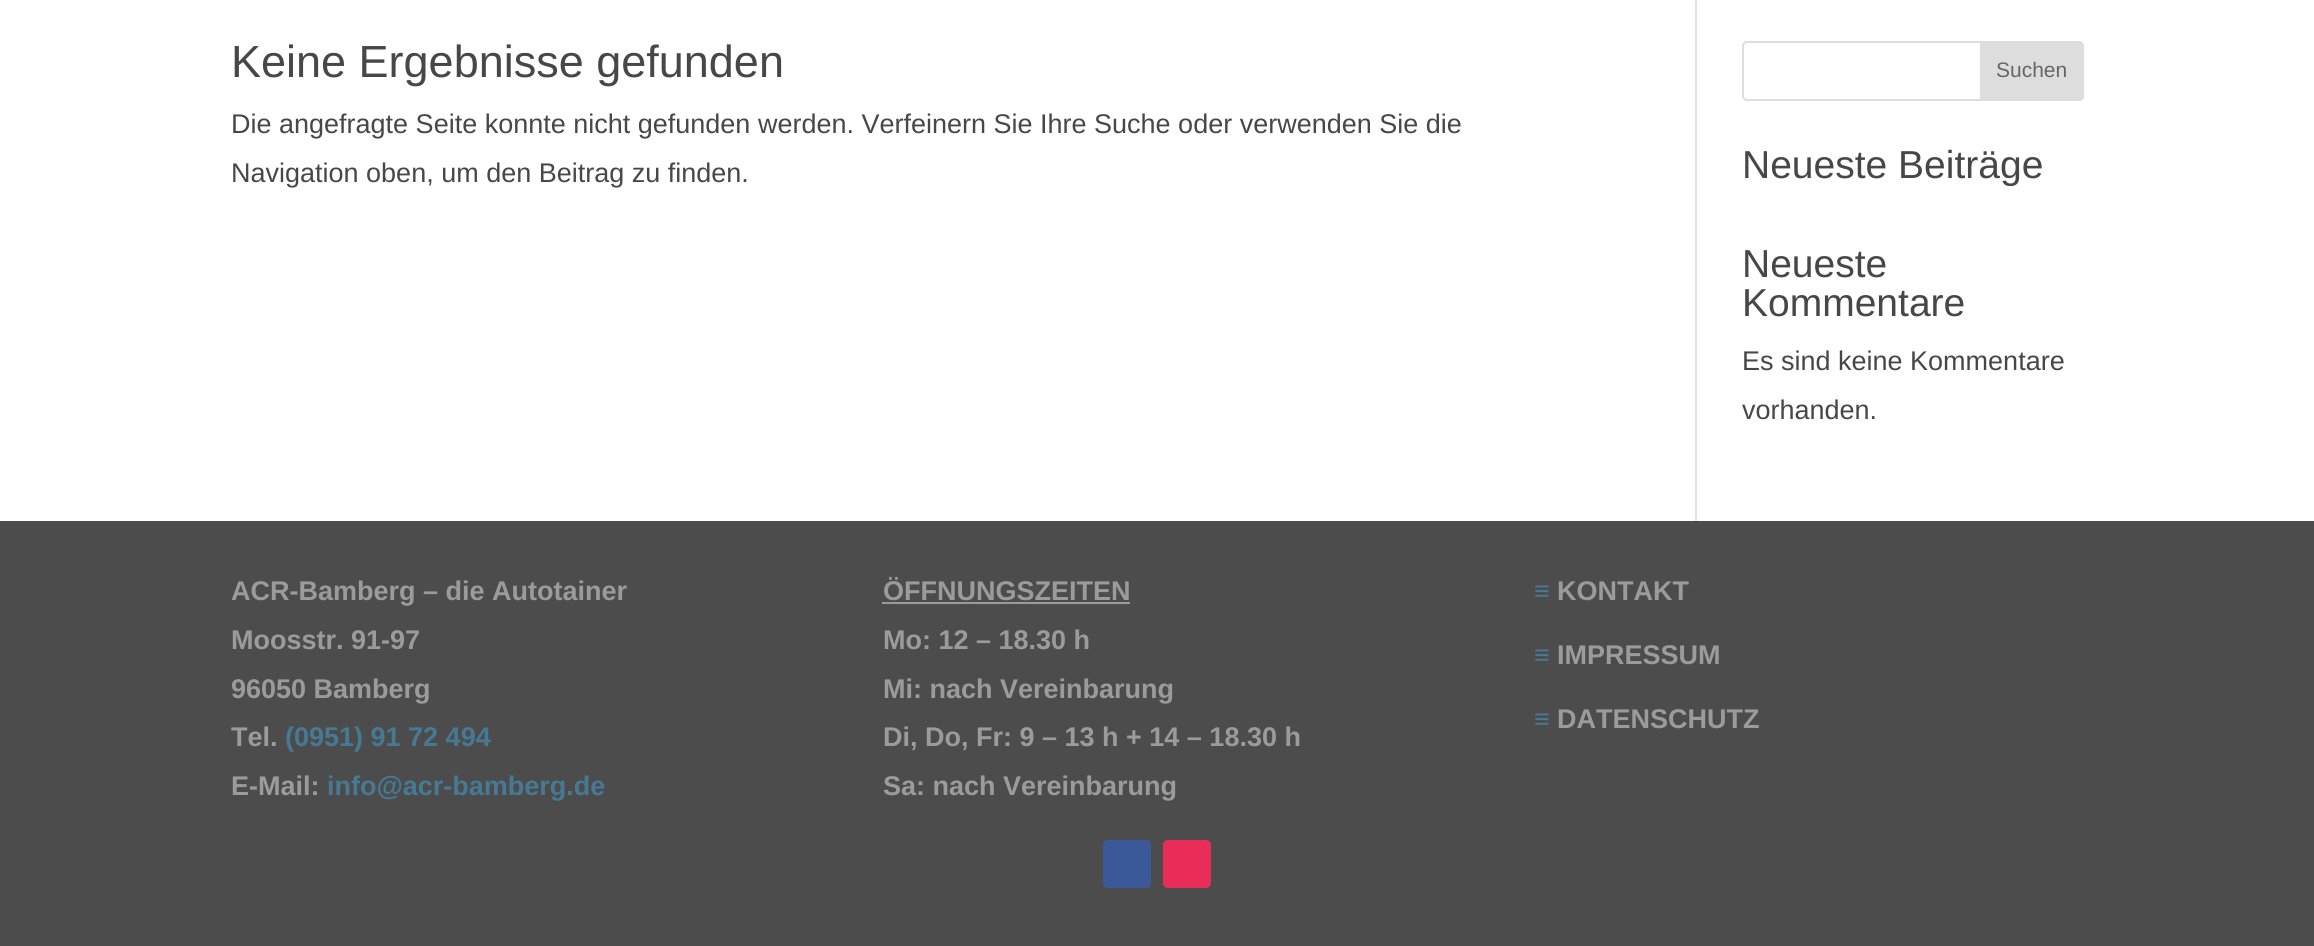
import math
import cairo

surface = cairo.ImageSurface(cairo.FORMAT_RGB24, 2314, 946)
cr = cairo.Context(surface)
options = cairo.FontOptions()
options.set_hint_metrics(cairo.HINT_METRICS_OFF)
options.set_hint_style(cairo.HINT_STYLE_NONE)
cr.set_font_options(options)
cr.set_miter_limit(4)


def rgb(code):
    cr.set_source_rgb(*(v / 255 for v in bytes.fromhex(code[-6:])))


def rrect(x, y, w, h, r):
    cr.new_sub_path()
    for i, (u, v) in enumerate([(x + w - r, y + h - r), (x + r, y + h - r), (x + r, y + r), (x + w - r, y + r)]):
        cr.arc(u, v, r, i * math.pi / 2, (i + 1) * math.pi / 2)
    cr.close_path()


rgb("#ffffff")
cr.paint()
rgb("#e2e2e2")
cr.rectangle(1695, 0, 2, 521)
cr.fill()
rrect(1743, 42, 340, 58, 4)
rgb("#dddddd")
cr.stroke()
cr.new_path()
cr.move_to(1981, 42)
cr.line_to(2079, 42)
cr.curve_to(2081, 42, 2083, 44, 2083, 46)
cr.line_to(2083, 96)
cr.curve_to(2083, 98, 2081, 100, 2079, 100)
cr.line_to(1981, 100)
cr.close_path()
cr.fill_preserve()
cr.stroke()
rgb("#4c4c4c")
cr.rectangle(0, 521, 2314, 425)
cr.fill()
rgb("#9b9b9b")
cr.rectangle(882, 602, 248, 2)
cr.fill()
rgb("#3b5998")
rrect(1103, 840, 48, 48, 5)
cr.fill()
rgb("#ea2c59")
rrect(1163, 840, 48, 48, 5)
cr.fill()
cr.select_font_face("Liberation Sans")
cr.set_font_size(45)
rgb("#474747")
cr.move_to(231, 77)
cr.show_text("Keine Ergebnisse gefunden")
cr.set_font_size(27)
cr.move_to(231, 133)
cr.show_text("Die angefragte Seite konnte nicht gefunden werden. Verfeinern Sie Ihre Suche oder verwenden Sie die")
cr.move_to(231, 182)
cr.show_text("Navigation oben, um den Beitrag zu finden.")
cr.set_font_size(21)
rgb("#666666")
cr.move_to(1996, 77)
cr.show_text("Suchen")
cr.set_font_size(39)
rgb("#474747")
for x, y, s in [
    (1742, 178, "Neueste Beiträge"),
    (1742, 277, "Neueste"),
    (1742, 316, "Kommentare"),
]:
    cr.move_to(x, y)
    cr.show_text(s)
cr.set_font_size(27)
cr.move_to(1742, 370)
cr.show_text("Es sind keine Kommentare")
cr.move_to(1742, 419)
cr.show_text("vorhanden.")
cr.select_font_face("Liberation Sans", cairo.FONT_SLANT_NORMAL, cairo.FONT_WEIGHT_BOLD)
rgb("#9b9b9b")
for x, y, s in [
    (231, 600, "ACR-Bamberg – die Autotainer"),
    (231, 649, "Moosstr. 91-97"),
    (231, 698, "96050 Bamberg"),
    (231, 746, "Tel."),
]:
    cr.move_to(x, y)
    cr.show_text(s)
rgb("#467994")
cr.move_to(285, 746)
cr.show_text("(0951) 91 72 494")
rgb("#9b9b9b")
cr.move_to(231, 795)
cr.show_text("E-Mail:")
rgb("#467994")
cr.move_to(327, 795)
cr.show_text("info@acr-bamberg.de")
rgb("#9b9b9b")
for x, y, s in [
    (883, 600, "ÖFFNUNGSZEITEN"),
    (883, 649, "Mo: 12 – 18.30 h"),
    (883, 698, "Mi: nach Vereinbarung"),
    (883, 746, "Di, Do, Fr: 9 – 13 h + 14 – 18.30 h"),
    (883, 795, "Sa: nach Vereinbarung"),
]:
    cr.move_to(x, y)
    cr.show_text(s)
rgb("#467994")
cr.move_to(1534, 600)
cr.show_text("≡")
rgb("#9b9b9b")
cr.move_to(1557, 600)
cr.show_text("KONTAKT")
rgb("#467994")
cr.move_to(1534, 664)
cr.show_text("≡")
rgb("#9b9b9b")
cr.move_to(1557, 664)
cr.show_text("IMPRESSUM")
rgb("#467994")
cr.move_to(1534, 728)
cr.show_text("≡")
rgb("#9b9b9b")
cr.move_to(1557, 728)
cr.show_text("DATENSCHUTZ")
surface.write_to_png("page.png")
